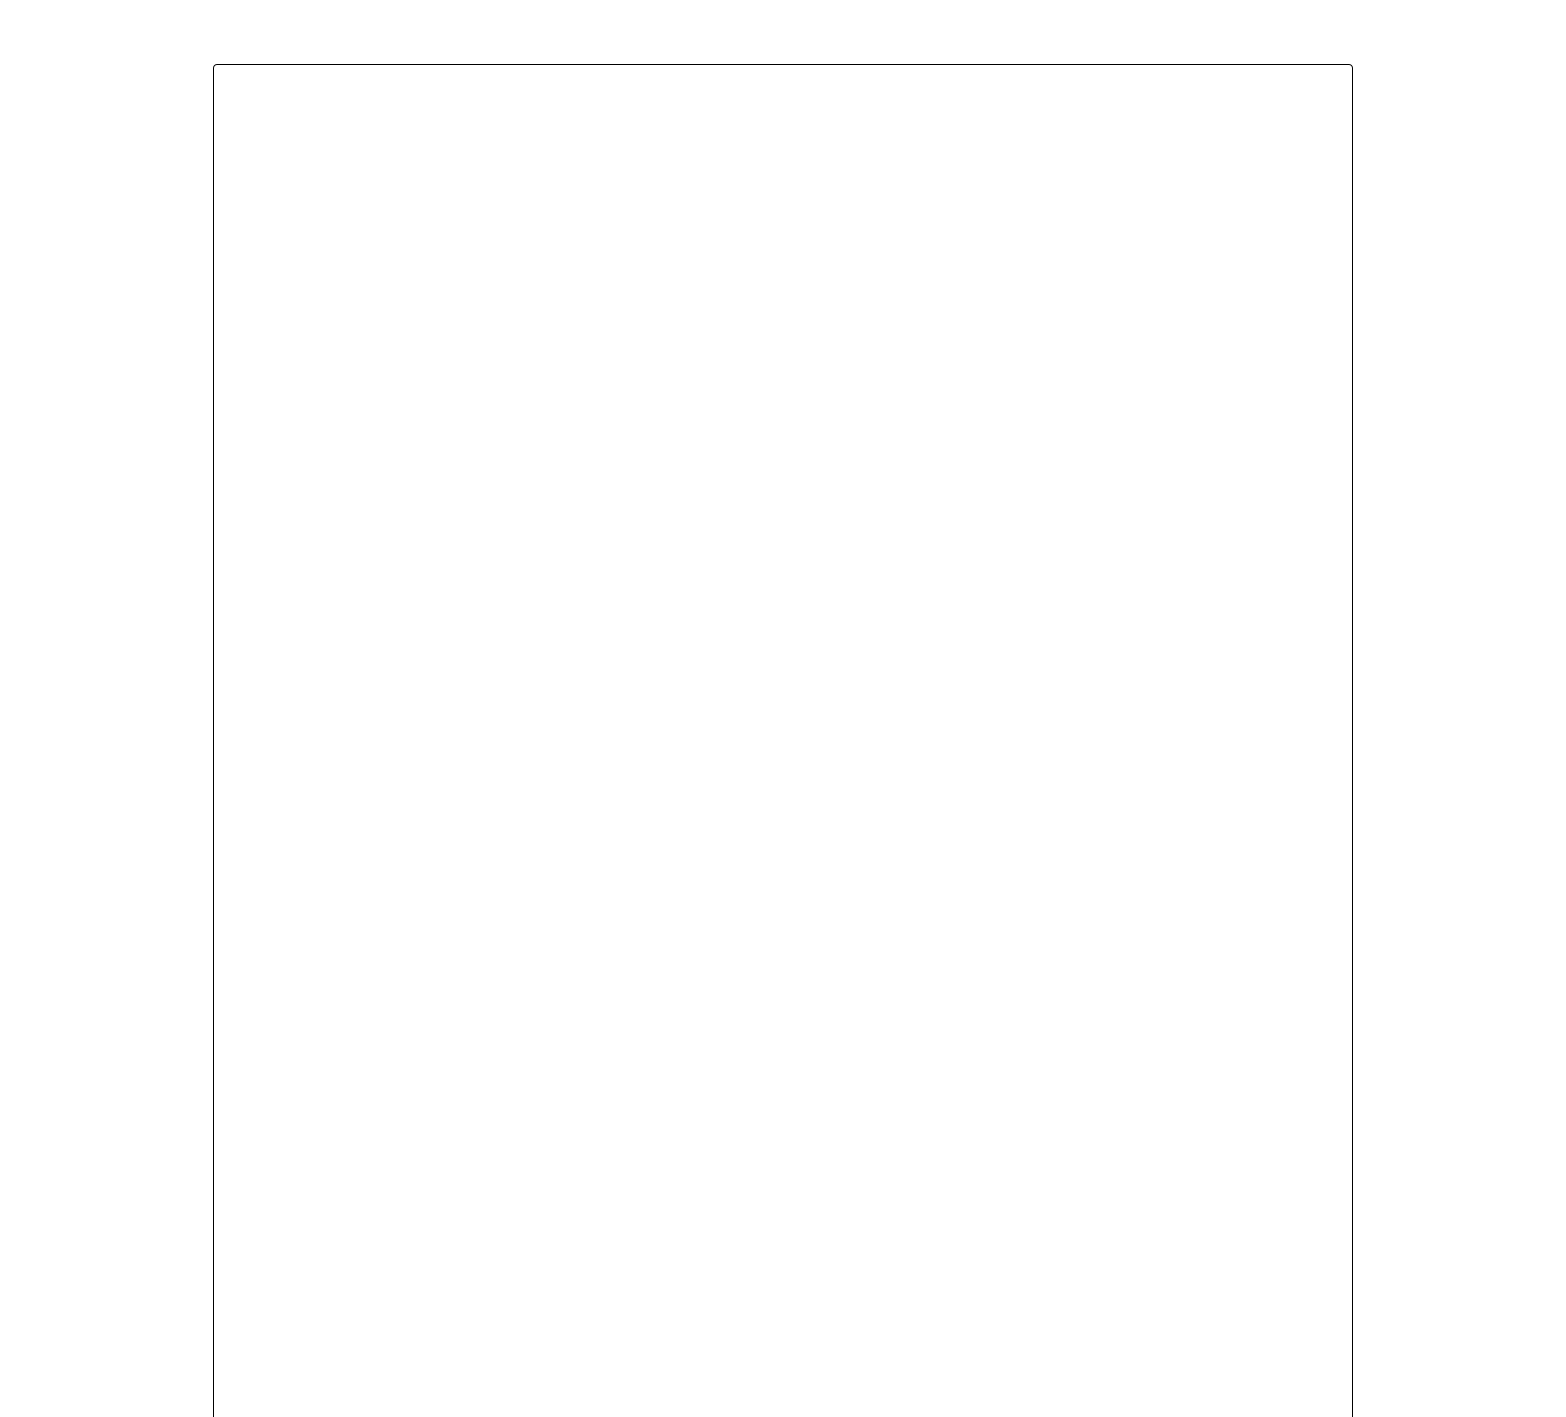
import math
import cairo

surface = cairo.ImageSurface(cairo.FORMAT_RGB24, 1566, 1417)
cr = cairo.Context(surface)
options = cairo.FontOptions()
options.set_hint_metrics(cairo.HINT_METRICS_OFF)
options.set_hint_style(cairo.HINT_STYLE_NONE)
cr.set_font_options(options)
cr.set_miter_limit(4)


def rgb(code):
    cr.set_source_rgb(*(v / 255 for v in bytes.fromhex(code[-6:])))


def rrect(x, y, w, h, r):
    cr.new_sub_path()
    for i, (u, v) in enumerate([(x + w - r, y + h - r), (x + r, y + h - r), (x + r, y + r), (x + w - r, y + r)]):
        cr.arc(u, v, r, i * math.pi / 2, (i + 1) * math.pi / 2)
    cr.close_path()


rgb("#ffffff")
cr.paint()
rrect(213.5, 64.5, 1139, 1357, 3.5)
rgb("#000000")
cr.set_line_width(1)
cr.stroke()
surface.write_to_png("page.png")
